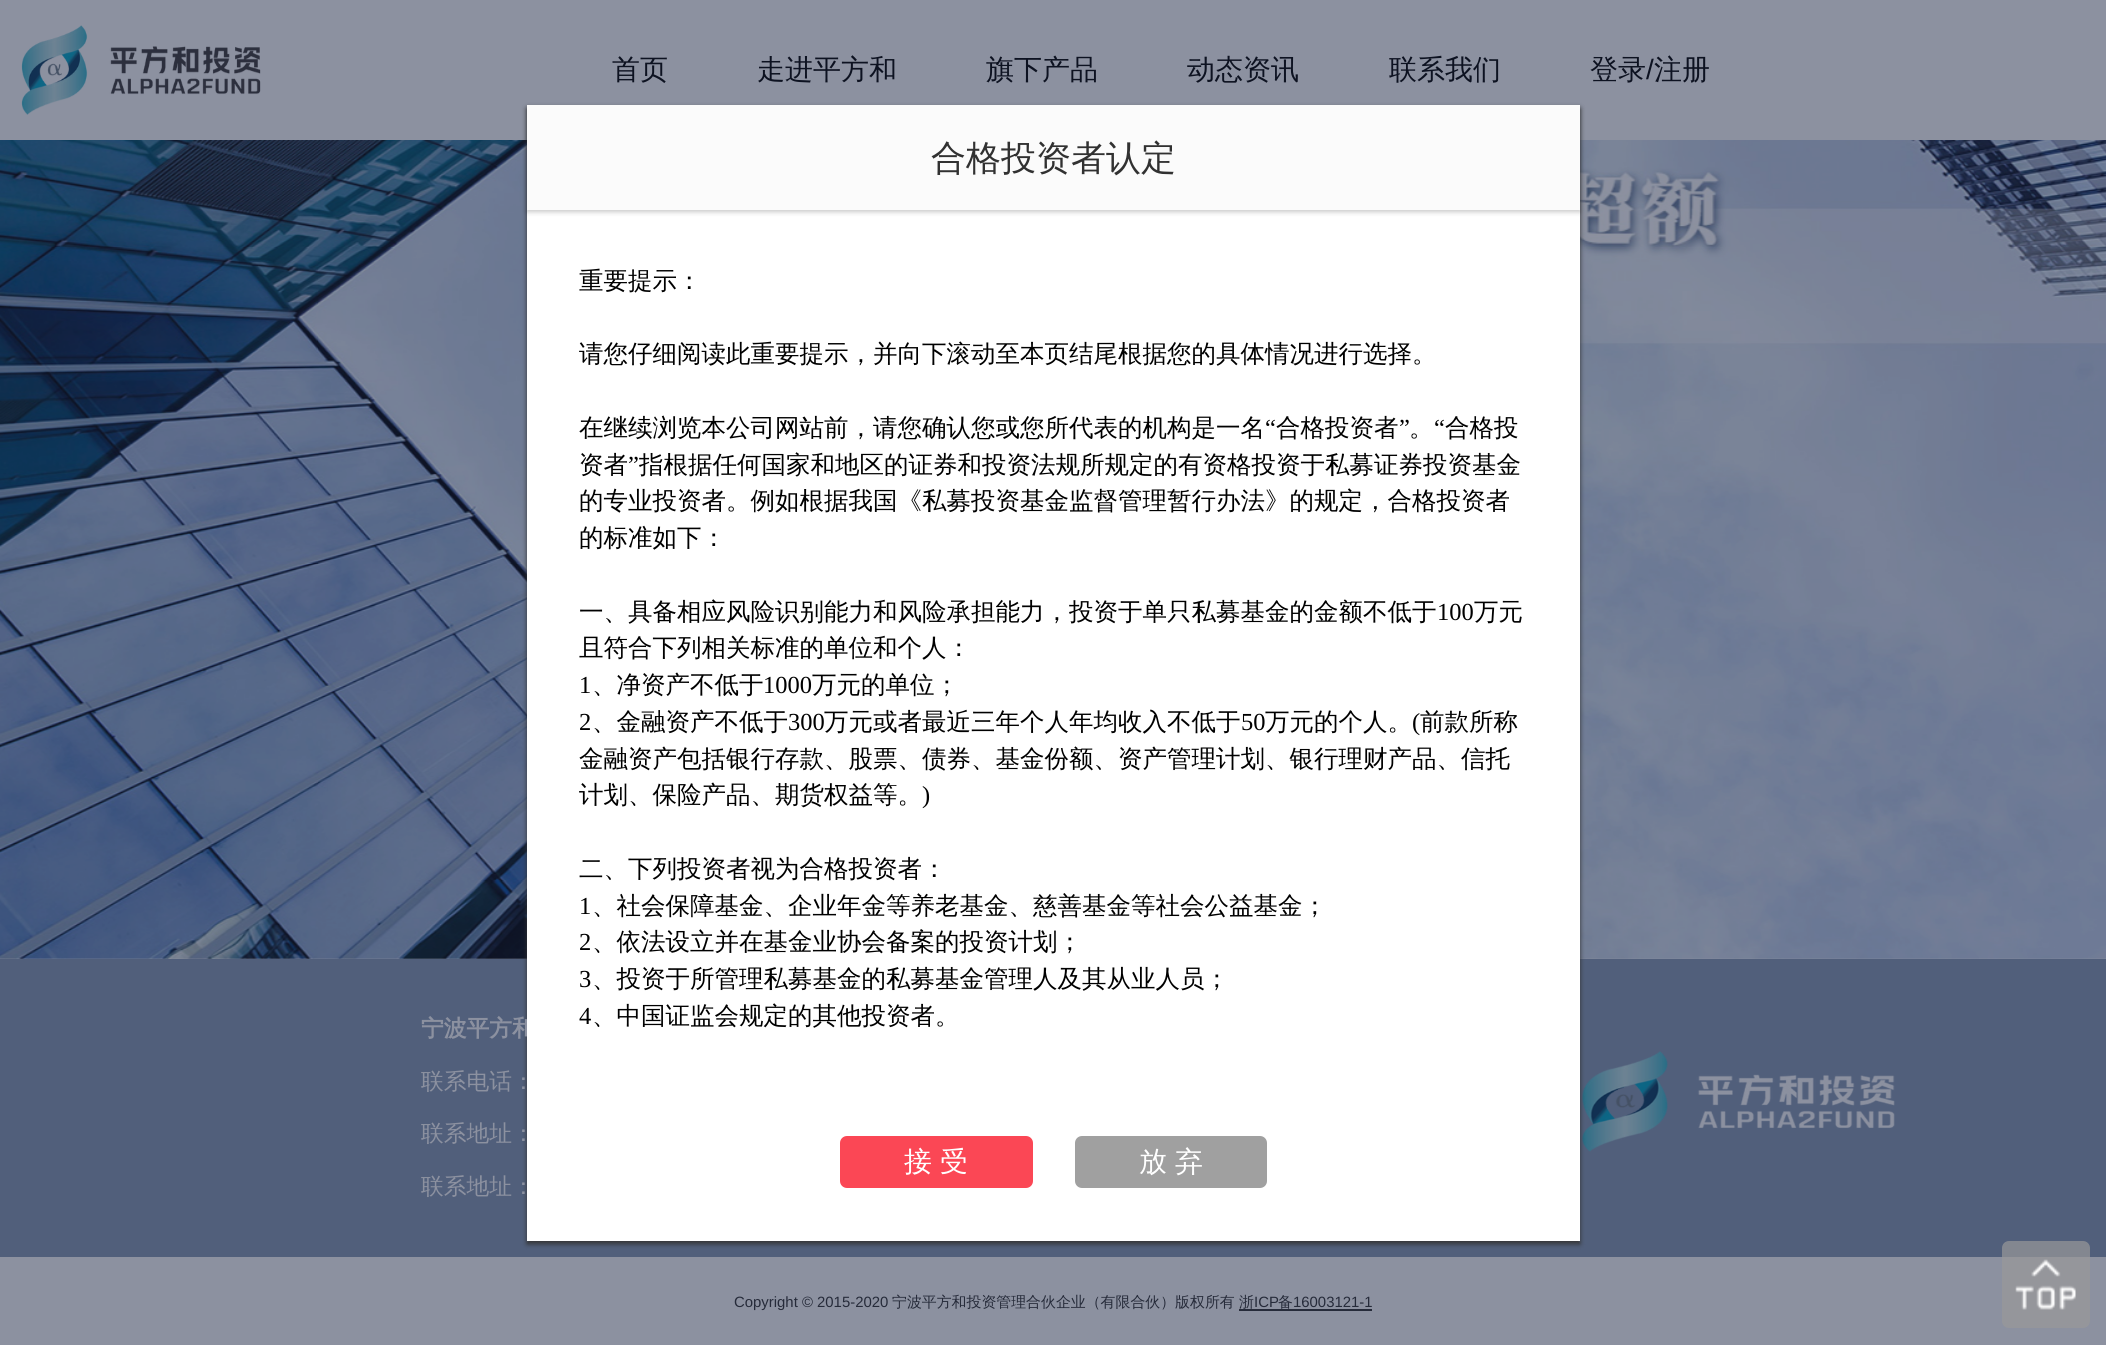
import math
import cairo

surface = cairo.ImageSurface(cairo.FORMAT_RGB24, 2106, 1345)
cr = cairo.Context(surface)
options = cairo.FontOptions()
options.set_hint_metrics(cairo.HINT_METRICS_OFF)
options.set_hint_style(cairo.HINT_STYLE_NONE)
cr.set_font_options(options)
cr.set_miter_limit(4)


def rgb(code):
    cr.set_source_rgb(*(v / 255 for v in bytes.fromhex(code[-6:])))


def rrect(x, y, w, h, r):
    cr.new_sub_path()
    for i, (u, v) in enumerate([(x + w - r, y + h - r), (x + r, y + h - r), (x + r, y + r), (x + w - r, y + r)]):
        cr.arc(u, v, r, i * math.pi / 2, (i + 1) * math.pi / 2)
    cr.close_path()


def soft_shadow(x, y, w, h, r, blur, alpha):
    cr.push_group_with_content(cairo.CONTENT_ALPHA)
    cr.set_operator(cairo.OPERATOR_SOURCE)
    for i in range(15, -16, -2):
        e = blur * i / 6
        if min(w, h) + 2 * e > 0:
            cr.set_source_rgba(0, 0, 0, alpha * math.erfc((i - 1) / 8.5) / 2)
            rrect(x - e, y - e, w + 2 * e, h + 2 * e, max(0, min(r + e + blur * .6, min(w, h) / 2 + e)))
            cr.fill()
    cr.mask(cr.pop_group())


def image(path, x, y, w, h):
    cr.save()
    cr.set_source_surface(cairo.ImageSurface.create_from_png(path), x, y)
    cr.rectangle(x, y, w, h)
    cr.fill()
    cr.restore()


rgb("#8c91a0")
cr.paint()
image("img/1.png", 21, 25, 240, 90)
image("img/2.png", 0, 140, 2106, 819)
rgb("#515f7b")
cr.rectangle(0, 959, 2106, 298)
cr.fill()
image("img/3.png", 1582, 1051, 313, 101)
rgb("#333333")
soft_shadow(527, 109, 1053, 1135, 0, 2.5, 1)
rgb("#262b3a")
cr.rectangle(1239, 1309, 133, 2)
cr.fill()
cr.set_source_rgba(0.6, 0.6, 0.6, 0.7)
rrect(2002, 1241, 88, 87, 7)
cr.fill()
image("img/4.png", 2015, 1259, 61, 51)
cr.select_font_face("WenQuanYi Zen Hei Medium")
cr.set_font_size(28)
rgb("#0d1221")
for x, y, s in [
    (612, 79, "首页"),
    (757, 79, "走进平方和"),
    (986, 79, "旗下产品"),
    (1187, 79, "动态资讯"),
    (1389, 79, "联系我们"),
    (1590, 79, "登录"),
]:
    cr.move_to(x, y)
    cr.show_text(s)
cr.select_font_face("Liberation Sans")
cr.move_to(1646, 79)
cr.show_text("/")
cr.select_font_face("WenQuanYi Zen Hei Medium")
cr.move_to(1654, 79)
cr.show_text("注册")
cr.select_font_face("WenQuanYi Zen Hei", cairo.FONT_SLANT_NORMAL, cairo.FONT_WEIGHT_BOLD)
cr.set_font_size(22.75)
rgb("#8c91a0")
cr.move_to(421, 1036)
cr.show_text("宁波平方和")
rgb("#ffffff")
cr.rectangle(527, 210, 1053, 1031)
cr.fill()
cr.select_font_face("WenQuanYi Zen Hei Medium")
cr.set_font_size(24.5)
rgb("#000000")
cr.move_to(592, 1024)
cr.show_text("、中国证监会规定的其他投资者。")
cr.select_font_face("Liberation Serif")
cr.move_to(579, 1024)
cr.show_text("4")
cr.select_font_face("WenQuanYi Zen Hei Medium")
cr.move_to(592, 987)
cr.show_text("、投资于所管理私募基金的私募基金管理人及其从业人员；")
cr.select_font_face("Liberation Serif")
cr.move_to(579, 987)
cr.show_text("3")
cr.select_font_face("WenQuanYi Zen Hei Medium")
cr.move_to(592, 950)
cr.show_text("、依法设立并在基金业协会备案的投资计划；")
cr.select_font_face("Liberation Serif")
cr.move_to(579, 950)
cr.show_text("2")
cr.select_font_face("WenQuanYi Zen Hei Medium")
cr.move_to(592, 914)
cr.show_text("、社会保障基金、企业年金等养老基金、慈善基金等社会公益基金；")
cr.select_font_face("Liberation Serif")
cr.move_to(579, 914)
cr.show_text("1")
cr.select_font_face("WenQuanYi Zen Hei Medium")
cr.move_to(579, 877)
cr.show_text("二、下列投资者视为合格投资者：")
cr.select_font_face("Liberation Serif")
cr.move_to(922, 803)
cr.show_text(")")
cr.select_font_face("WenQuanYi Zen Hei Medium")
for x, y, s in [
    (579, 803, "计划、保险产品、期货权益等。"),
    (579, 767, "金融资产包括银行存款、股票、债券、基金份额、资产管理计划、银行理财产品、信托"),
    (1420, 730, "前款所称"),
]:
    cr.move_to(x, y)
    cr.show_text(s)
cr.select_font_face("Liberation Serif")
cr.move_to(1412, 730)
cr.show_text("(")
cr.select_font_face("WenQuanYi Zen Hei Medium")
cr.move_to(1265, 730)
cr.show_text("万元的个人。")
cr.select_font_face("Liberation Serif")
cr.move_to(1241, 730)
cr.show_text("50")
cr.select_font_face("WenQuanYi Zen Hei Medium")
cr.move_to(824, 730)
cr.show_text("万元或者最近三年个人年均收入不低于")
cr.select_font_face("Liberation Serif")
cr.move_to(788, 730)
cr.show_text("300")
cr.select_font_face("WenQuanYi Zen Hei Medium")
cr.move_to(592, 730)
cr.show_text("、金融资产不低于")
cr.select_font_face("Liberation Serif")
cr.move_to(579, 730)
cr.show_text("2")
cr.select_font_face("WenQuanYi Zen Hei Medium")
cr.move_to(812, 693)
cr.show_text("万元的单位；")
cr.select_font_face("Liberation Serif")
cr.move_to(763, 693)
cr.show_text("1000")
cr.select_font_face("WenQuanYi Zen Hei Medium")
cr.move_to(592, 693)
cr.show_text("、净资产不低于")
cr.select_font_face("Liberation Serif")
cr.move_to(579, 693)
cr.show_text("1")
cr.select_font_face("WenQuanYi Zen Hei Medium")
cr.move_to(579, 656)
cr.show_text("且符合下列相关标准的单位和个人：")
cr.move_to(1474, 620)
cr.show_text("万元")
cr.select_font_face("Liberation Serif")
cr.move_to(1437, 620)
cr.show_text("100")
cr.select_font_face("WenQuanYi Zen Hei Medium")
for x, y, s in [
    (579, 620, "一、具备相应风险识别能力和风险承担能力，投资于单只私募基金的金额不低于"),
    (579, 546, "的标准如下："),
    (579, 509, "的专业投资者。例如根据我国《私募投资基金监督管理暂行办法》的规定，合格投资者"),
    (639, 473, "指根据任何国家和地区的证券和投资法规所规定的有资格投资于私募证券投资基金"),
]:
    cr.move_to(x, y)
    cr.show_text(s)
cr.select_font_face("Liberation Serif")
cr.move_to(628, 473)
cr.show_text("”")
cr.select_font_face("WenQuanYi Zen Hei Medium")
cr.move_to(579, 473)
cr.show_text("资者")
cr.move_to(1445, 436)
cr.show_text("合格投")
cr.select_font_face("Liberation Serif")
cr.move_to(1434, 436)
cr.show_text("“")
cr.select_font_face("WenQuanYi Zen Hei Medium")
cr.move_to(1409, 436)
cr.show_text("。")
cr.select_font_face("Liberation Serif")
cr.move_to(1399, 436)
cr.show_text("”")
cr.select_font_face("WenQuanYi Zen Hei Medium")
cr.move_to(1276, 436)
cr.show_text("合格投资者")
cr.select_font_face("Liberation Serif")
cr.move_to(1265, 436)
cr.show_text("“")
cr.select_font_face("WenQuanYi Zen Hei Medium")
for x, y, s in [
    (579, 436, "在继续浏览本公司网站前，请您确认您或您所代表的机构是一名"),
    (579, 362, "请您仔细阅读此重要提示，并向下滚动至本页结尾根据您的具体情况进行选择。"),
    (579, 289, "重要提示："),
]:
    cr.move_to(x, y)
    cr.show_text(s)
rgb("#a0a0a0")
rrect(1075, 1136, 192, 52, 7)
cr.fill()
cr.set_font_size(28)
rgb("#ffffff")
cr.move_to(1175, 1171)
cr.show_text("弃")
cr.move_to(1139, 1171)
cr.show_text("放")
rgb("#fb4755")
rrect(840, 1136, 193, 52, 7)
cr.fill()
rgb("#ffffff")
cr.move_to(940, 1171)
cr.show_text("受")
cr.move_to(904, 1171)
cr.show_text("接")
rgb("#000000")
soft_shadow(527, 107, 1053, 105, 0, 2.5, 0.22)
rgb("#fbfbfb")
cr.rectangle(527, 105, 1053, 105)
cr.fill()
cr.set_font_size(35)
rgb("#313131")
cr.move_to(931, 170)
cr.show_text("合格投资者认定")
cr.set_font_size(22.75)
rgb("#8c91a0")
for x, y, s in [
    (421, 1089, "联系电话："),
    (421, 1141, "联系地址："),
    (421, 1194, "联系地址："),
]:
    cr.move_to(x, y)
    cr.show_text(s)
cr.select_font_face("Liberation Sans")
cr.set_font_size(14.9)
rgb("#262b3a")
cr.move_to(734, 1307)
cr.show_text("Copyright © 2015-2020")
cr.select_font_face("WenQuanYi Zen Hei Medium")
cr.move_to(892, 1307)
cr.show_text("宁波平方和投资管理合伙企业（有限合伙）版权所有")
cr.move_to(1239, 1307)
cr.show_text("浙")
cr.select_font_face("Liberation Sans")
cr.move_to(1254, 1307)
cr.show_text("ICP")
cr.select_font_face("WenQuanYi Zen Hei Medium")
cr.move_to(1278, 1307)
cr.show_text("备")
cr.select_font_face("Liberation Sans")
cr.move_to(1293, 1307)
cr.show_text("16003121-1")
surface.write_to_png("page.png")
